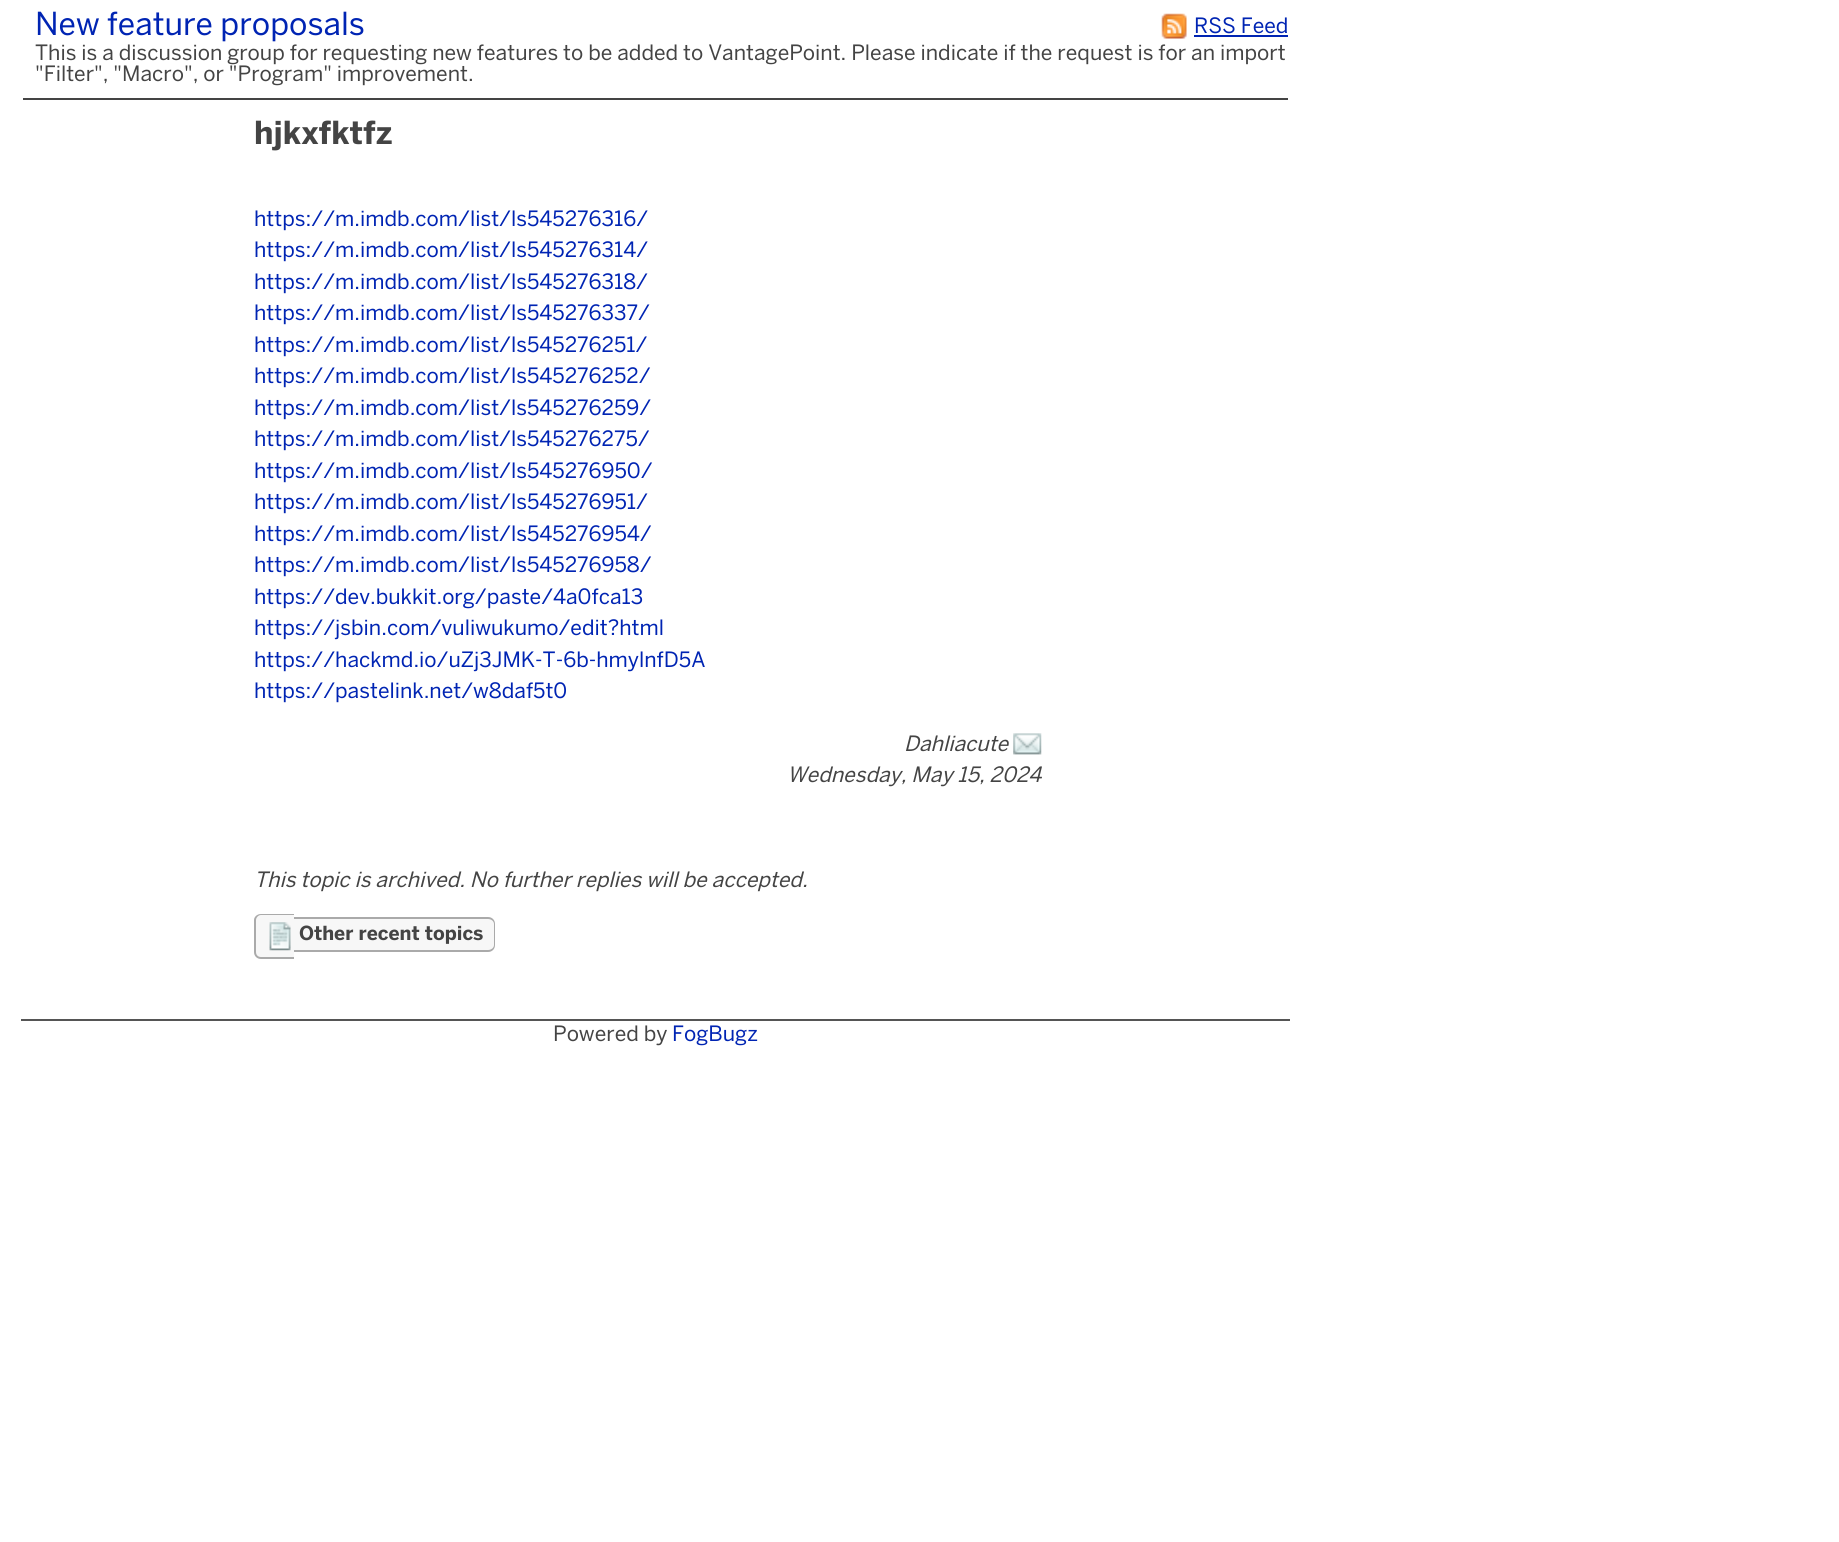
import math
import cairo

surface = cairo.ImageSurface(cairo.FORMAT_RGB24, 1839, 1542)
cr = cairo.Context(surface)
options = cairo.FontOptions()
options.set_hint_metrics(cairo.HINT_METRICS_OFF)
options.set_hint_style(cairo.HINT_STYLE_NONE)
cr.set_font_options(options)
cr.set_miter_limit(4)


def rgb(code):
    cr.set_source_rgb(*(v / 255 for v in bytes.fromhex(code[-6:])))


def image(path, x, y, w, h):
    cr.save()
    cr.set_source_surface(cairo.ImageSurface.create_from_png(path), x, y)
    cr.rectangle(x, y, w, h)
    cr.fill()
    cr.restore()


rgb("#ffffff")
cr.paint()
image("img/1.png", 1161, 13, 26, 26)
rgb("#0024b3")
cr.rectangle(1194, 35, 94, 2)
cr.fill()
rgb("#444444")
cr.rectangle(23, 98, 1265, 2)
cr.fill()
image("img/2.png", 1013, 733, 29, 22)
rgb("#f7f7f7")
cr.new_path()
cr.move_to(261, 914)
cr.line_to(294, 914)
cr.line_to(294, 959)
cr.line_to(261, 959)
cr.curve_to(257, 959, 254, 956, 254, 952)
cr.line_to(254, 921)
cr.curve_to(254, 917, 257, 914, 261, 914)
cr.close_path()
cr.fill()
rgb("#aaaaaa")
cr.set_fill_rule(cairo.FILL_RULE_EVEN_ODD)
cr.new_path()
cr.move_to(261, 914)
cr.line_to(294, 914)
cr.line_to(294, 959)
cr.line_to(261, 959)
cr.curve_to(257, 959, 254, 956, 254, 952)
cr.line_to(254, 920)
cr.curve_to(254, 917, 257, 914, 261, 914)
cr.close_path()
cr.move_to(261, 915)
cr.line_to(294, 915)
cr.line_to(294, 957)
cr.line_to(261, 957)
cr.curve_to(258, 957, 256, 955, 256, 952)
cr.line_to(256, 920)
cr.curve_to(256, 918, 258, 915, 261, 915)
cr.close_path()
cr.fill()
image("img/3.png", 269, 922, 22, 29)
rgb("#f7f7f7")
cr.new_path()
cr.move_to(294, 917)
cr.line_to(488, 917)
cr.curve_to(492, 917, 495, 920, 495, 924)
cr.line_to(495, 945)
cr.curve_to(495, 949, 492, 952, 488, 952)
cr.line_to(294, 952)
cr.close_path()
cr.fill()
rgb("#aaaaaa")
cr.new_path()
cr.move_to(294, 917)
cr.line_to(488, 917)
cr.curve_to(492, 917, 495, 920, 495, 924)
cr.line_to(495, 945)
cr.curve_to(495, 949, 492, 952, 488, 952)
cr.line_to(294, 952)
cr.close_path()
cr.move_to(294, 919)
cr.line_to(488, 919)
cr.curve_to(491, 919, 494, 921, 494, 924)
cr.line_to(494, 945)
cr.curve_to(494, 948, 491, 950, 488, 950)
cr.line_to(294, 950)
cr.close_path()
cr.fill()
rgb("#555555")
cr.rectangle(21, 1019, 1269, 2)
cr.fill()
cr.select_font_face("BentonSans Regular")
cr.set_font_size(31.5)
rgb("#0024b3")
cr.move_to(35, 35)
cr.show_text("New feature proposals")
cr.set_font_size(21)
cr.move_to(1194, 33)
cr.show_text("RSS Feed")
rgb("#444444")
cr.move_to(35, 60)
cr.show_text("This is a discussion group for requesting new features to be added to VantagePoint. Please indicate if the request is for an import")
cr.move_to(35, 81)
cr.show_text("\"Filter\", \"Macro\", or \"Program\" improvement.")
cr.select_font_face("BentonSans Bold", cairo.FONT_SLANT_NORMAL, cairo.FONT_WEIGHT_BOLD)
cr.set_font_size(31.5)
cr.move_to(254, 144)
cr.show_text("hjkxfktfz")
cr.select_font_face("BentonSans Regular")
cr.set_font_size(21)
rgb("#0024b3")
for x, y, s in [
    (254, 226, "https://m.imdb.com/list/ls545276316/"),
    (254, 257, "https://m.imdb.com/list/ls545276314/"),
    (254, 289, "https://m.imdb.com/list/ls545276318/"),
    (254, 320, "https://m.imdb.com/list/ls545276337/"),
    (254, 352, "https://m.imdb.com/list/ls545276251/"),
    (254, 383, "https://m.imdb.com/list/ls545276252/"),
    (254, 415, "https://m.imdb.com/list/ls545276259/"),
    (254, 446, "https://m.imdb.com/list/ls545276275/"),
    (254, 478, "https://m.imdb.com/list/ls545276950/"),
    (254, 509, "https://m.imdb.com/list/ls545276951/"),
    (254, 541, "https://m.imdb.com/list/ls545276954/"),
    (254, 572, "https://m.imdb.com/list/ls545276958/"),
    (254, 604, "https://dev.bukkit.org/paste/4a0fca13"),
    (254, 635, "https://jsbin.com/vuliwukumo/edit?html"),
    (254, 667, "https://hackmd.io/uZj3JMK-T-6b-hmylnfD5A"),
    (254, 698, "https://pastelink.net/w8daf5t0"),
]:
    cr.move_to(x, y)
    cr.show_text(s)
cr.select_font_face("BentonSans Regular", cairo.FONT_SLANT_ITALIC)
rgb("#444444")
for x, y, s in [
    (904, 751, "Dahliacute"),
    (787, 782, "Wednesday, May 15, 2024"),
    (254, 887, "This topic is archived. No further replies will be accepted."),
]:
    cr.move_to(x, y)
    cr.show_text(s)
cr.select_font_face("BentonSans Bold", cairo.FONT_SLANT_NORMAL, cairo.FONT_WEIGHT_BOLD)
cr.set_font_size(19.25)
cr.move_to(299, 940)
cr.show_text("Other recent topics")
cr.select_font_face("BentonSans Regular")
cr.set_font_size(21)
cr.move_to(553, 1041)
cr.show_text("Powered by")
rgb("#0024b3")
cr.move_to(672, 1041)
cr.show_text("FogBugz")
surface.write_to_png("page.png")
